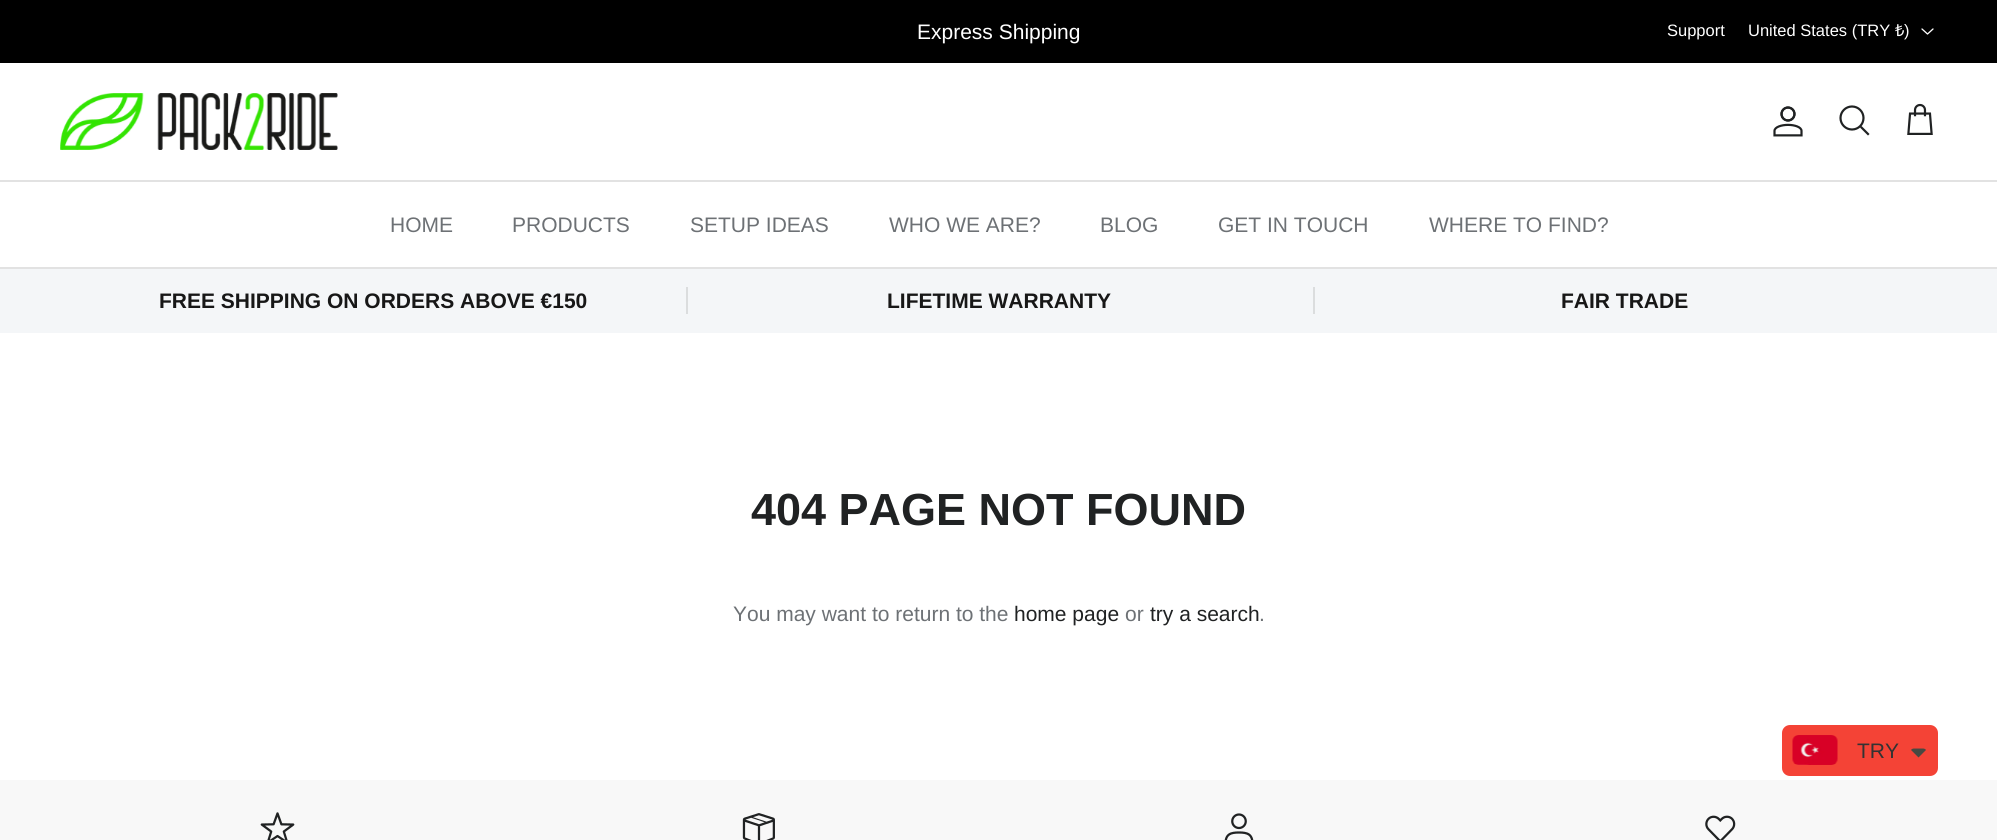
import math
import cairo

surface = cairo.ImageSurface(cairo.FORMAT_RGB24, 1997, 840)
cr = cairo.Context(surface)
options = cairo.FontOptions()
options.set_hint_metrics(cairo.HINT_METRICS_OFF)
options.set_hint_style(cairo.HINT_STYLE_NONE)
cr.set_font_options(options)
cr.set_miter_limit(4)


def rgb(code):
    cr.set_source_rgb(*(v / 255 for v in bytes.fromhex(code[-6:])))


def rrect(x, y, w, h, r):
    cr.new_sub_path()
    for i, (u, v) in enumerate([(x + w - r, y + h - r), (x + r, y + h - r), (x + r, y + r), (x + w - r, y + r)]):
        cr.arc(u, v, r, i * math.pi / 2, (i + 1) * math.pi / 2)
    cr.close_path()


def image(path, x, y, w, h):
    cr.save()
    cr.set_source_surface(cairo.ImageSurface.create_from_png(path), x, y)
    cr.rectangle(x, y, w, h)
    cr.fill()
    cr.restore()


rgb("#ffffff")
cr.paint()
rgb("#000000")
cr.rectangle(0, 0, 1997, 63)
cr.fill()
cr.new_path()
cr.move_to(1922, 29)
cr.line_to(1927.5, 34)
cr.line_to(1933, 29)
rgb("#ffffff")
cr.set_line_width(1.3)
cr.set_line_cap(cairo.LINE_CAP_ROUND)
cr.set_line_join(cairo.LINE_JOIN_ROUND)
cr.stroke()
rgb("#e2e2e2")
cr.rectangle(0, 180, 1997, 2)
cr.fill()
image("img/1.png", 60, 93, 278, 57)
image("img/2.png", 1773, 106, 30, 31)
cr.arc(1852, 118, 11.5, 0, 2 * math.pi)
rgb("#202223")
cr.set_line_width(2.2)
cr.set_line_cap(cairo.LINE_CAP_BUTT)
cr.set_line_join(cairo.LINE_JOIN_MITER)
cr.stroke()
cr.new_path()
cr.move_to(1861.5, 127.5)
cr.line_to(1868, 134)
cr.set_line_cap(cairo.LINE_CAP_SQUARE)
cr.stroke()
image("img/3.png", 1907, 103, 26, 32)
for x, y, w, h, color in [
    (0, 267, 1997, 2, "#e2e2e2"),
    (0, 269, 1997, 64, "#f4f6f8"),
    (686, 287, 2, 27, "#dbddde"),
    (1313, 287, 2, 27, "#dbddde"),
]:
    rgb(color)
    cr.rectangle(x, y, w, h)
    cr.fill()
rgb("#f44336")
rrect(1782, 725, 156, 51, 8)
cr.fill()
image("img/4.png", 1792, 735, 46, 30)
rgb("#474942")
cr.new_path()
cr.move_to(1914, 748.5)
cr.curve_to(1913, 748.5, 1911.5, 749, 1911, 750)
cr.line_to(1918.5, 757.5)
cr.line_to(1926, 750)
cr.curve_to(1925.5, 749, 1924, 748.5, 1923, 748.5)
cr.close_path()
cr.fill()
rgb("#f8f8f8")
cr.rectangle(0, 780, 1997, 60)
cr.fill()
image("img/5.png", 260, 812, 35, 28)
image("img/6.png", 742, 813, 33, 27)
image("img/7.png", 1224, 813, 30, 27)
image("img/8.png", 1705, 815, 31, 25)
cr.select_font_face("Liberation Sans")
cr.set_font_size(21)
rgb("#ffffff")
cr.move_to(917, 39)
cr.show_text("Express Shipping")
cr.set_font_size(16.5)
cr.move_to(1667, 36)
cr.show_text("Support")
cr.move_to(1748, 36)
cr.show_text("United States (TRY")
cr.select_font_face("Noto Sans")
cr.move_to(1895, 36)
cr.show_text("₺")
cr.select_font_face("Liberation Sans")
cr.move_to(1904, 36)
cr.show_text(")")
cr.set_font_size(21)
rgb("#6d7175")
for x, y, s in [
    (390, 232, "HOME"),
    (512, 232, "PRODUCTS"),
    (690, 232, "SETUP IDEAS"),
    (889, 232, "WHO WE ARE?"),
    (1100, 232, "BLOG"),
    (1218, 232, "GET IN TOUCH"),
    (1429, 232, "WHERE TO FIND?"),
]:
    cr.move_to(x, y)
    cr.show_text(s)
cr.select_font_face("Liberation Sans", cairo.FONT_SLANT_NORMAL, cairo.FONT_WEIGHT_BOLD)
rgb("#171717")
for x, y, s in [
    (159, 308, "FREE SHIPPING ON ORDERS ABOVE €150"),
    (887, 308, "LIFETIME WARRANTY"),
    (1561, 308, "FAIR TRADE"),
]:
    cr.move_to(x, y)
    cr.show_text(s)
cr.set_font_size(45)
rgb("#202223")
cr.move_to(751, 525)
cr.show_text("404 PAGE NOT FOUND")
cr.select_font_face("Liberation Sans")
cr.set_font_size(21)
rgb("#6d7175")
cr.move_to(733, 621)
cr.show_text("You may want to return to the")
rgb("#202223")
cr.move_to(1014, 621)
cr.show_text("home page")
rgb("#6d7175")
cr.move_to(1125, 621)
cr.show_text("or")
rgb("#202223")
cr.move_to(1150, 621)
cr.show_text("try a search")
rgb("#6d7175")
cr.move_to(1259, 621)
cr.show_text(".")
rgb("#333333")
cr.move_to(1857, 758)
cr.show_text("TRY")
surface.write_to_png("page.png")
